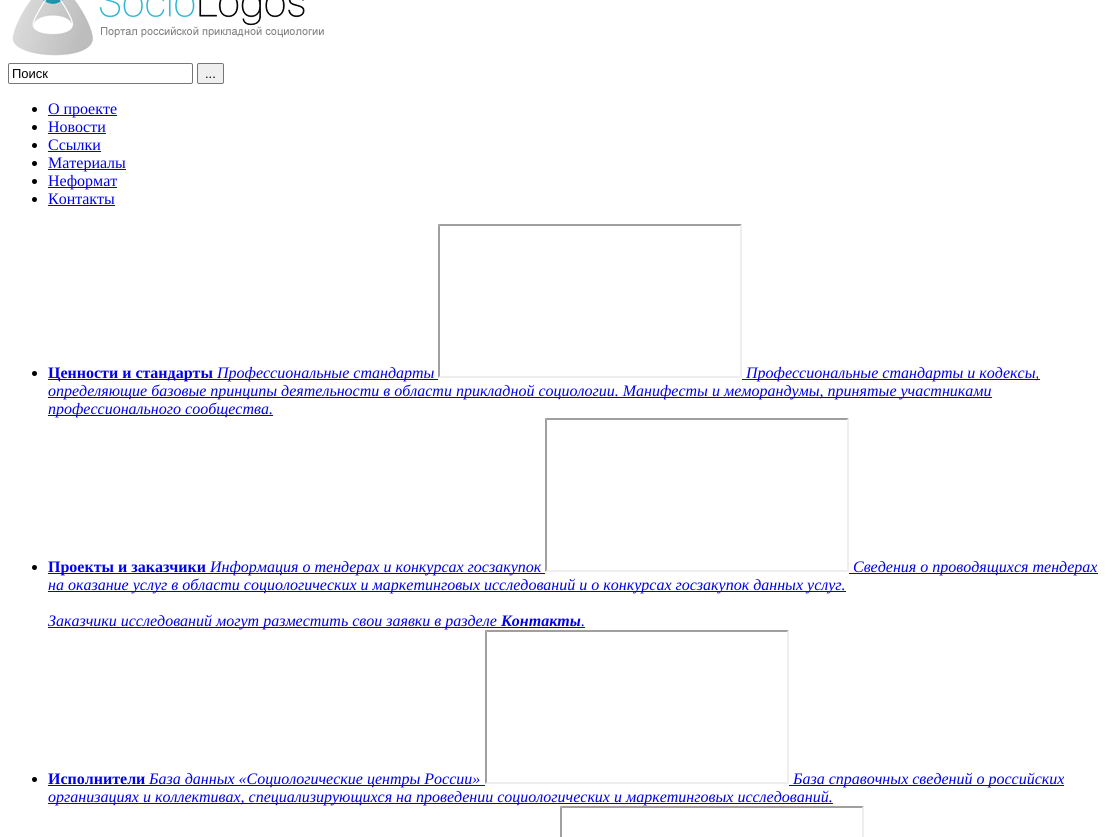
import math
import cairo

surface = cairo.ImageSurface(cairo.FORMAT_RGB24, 1115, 837)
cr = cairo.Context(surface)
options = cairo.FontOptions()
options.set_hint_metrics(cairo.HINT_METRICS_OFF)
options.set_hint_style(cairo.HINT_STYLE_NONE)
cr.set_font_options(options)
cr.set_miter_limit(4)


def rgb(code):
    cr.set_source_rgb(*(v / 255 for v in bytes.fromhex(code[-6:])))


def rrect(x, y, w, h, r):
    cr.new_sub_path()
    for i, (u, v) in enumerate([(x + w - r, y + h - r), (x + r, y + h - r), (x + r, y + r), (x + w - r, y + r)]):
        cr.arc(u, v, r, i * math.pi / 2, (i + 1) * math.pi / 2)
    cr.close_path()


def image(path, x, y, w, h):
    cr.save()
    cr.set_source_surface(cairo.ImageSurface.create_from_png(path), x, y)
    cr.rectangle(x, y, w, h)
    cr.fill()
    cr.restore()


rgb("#ffffff")
cr.paint()
image("img/1.png", 12, 0, 312, 56)
rrect(8.5, 63.5, 184, 20, 1.5)
rgb("#767676")
cr.set_line_width(1)
cr.stroke()
rgb("#efefef")
rrect(197.5, 63.5, 26, 20, 1.5)
cr.fill_preserve()
rgb("#767676")
cr.stroke()
rgb("#000000")
cr.arc(34.5, 109.5, 2.5, 0, 2 * math.pi)
cr.fill()
rgb("#0000ee")
cr.rectangle(48, 115, 69, 1)
cr.fill()
rgb("#000000")
cr.arc(34.5, 127.5, 2.5, 0, 2 * math.pi)
cr.fill()
rgb("#0000ee")
cr.rectangle(48, 133, 58, 1)
cr.fill()
rgb("#000000")
cr.arc(34.5, 145.5, 2.5, 0, 2 * math.pi)
cr.fill()
rgb("#0000ee")
cr.rectangle(48, 151, 53, 1)
cr.fill()
rgb("#000000")
cr.arc(34.5, 163.5, 2.5, 0, 2 * math.pi)
cr.fill()
rgb("#0000ee")
cr.rectangle(48, 169, 78, 1)
cr.fill()
rgb("#000000")
cr.arc(34.5, 181.5, 2.5, 0, 2 * math.pi)
cr.fill()
rgb("#0000ee")
cr.rectangle(48, 187, 69, 1)
cr.fill()
rgb("#000000")
cr.arc(34.5, 199.5, 2.5, 0, 2 * math.pi)
cr.fill()
rgb("#0000ee")
cr.rectangle(48, 205, 67, 1)
cr.fill()
rgb("#000000")
cr.arc(34.5, 373.5, 2.5, 0, 2 * math.pi)
cr.fill()
rgb("#0000ee")
cr.rectangle(48, 379, 390, 1)
cr.fill()
rgb("#9f9f9f")
cr.new_path()
cr.move_to(438, 224)
cr.line_to(742, 224)
cr.line_to(740, 226)
cr.line_to(440, 226)
cr.close_path()
cr.fill()
rgb("#eeeeee")
cr.new_path()
cr.move_to(742, 224)
cr.line_to(742, 378)
cr.line_to(740, 376)
cr.line_to(740, 226)
cr.close_path()
cr.fill()
cr.new_path()
cr.move_to(742, 378)
cr.line_to(438, 378)
cr.line_to(440, 376)
cr.line_to(740, 376)
cr.close_path()
cr.fill()
rgb("#9f9f9f")
cr.new_path()
cr.move_to(438, 378)
cr.line_to(438, 224)
cr.line_to(440, 226)
cr.line_to(440, 376)
cr.close_path()
cr.fill()
for x, y, w, h, color in [
    (742, 379, 298, 1, "#0000ee"),
    (48, 397, 944, 1, "#0000ee"),
    (48, 415, 225, 1, "#0000ee"),
]:
    rgb(color)
    cr.rectangle(x, y, w, h)
    cr.fill()
rgb("#000000")
cr.arc(34.5, 567.5, 2.5, 0, 2 * math.pi)
cr.fill()
rgb("#0000ee")
cr.rectangle(48, 573, 493, 1)
cr.fill()
cr.rectangle(541, 573, 4, 1)
cr.fill()
rgb("#9f9f9f")
cr.new_path()
cr.move_to(545, 418)
cr.line_to(849, 418)
cr.line_to(847, 420)
cr.line_to(547, 420)
cr.close_path()
cr.fill()
rgb("#eeeeee")
cr.new_path()
cr.move_to(849, 418)
cr.line_to(849, 572)
cr.line_to(847, 570)
cr.line_to(847, 420)
cr.close_path()
cr.fill()
cr.new_path()
cr.move_to(849, 572)
cr.line_to(545, 572)
cr.line_to(547, 570)
cr.line_to(847, 570)
cr.close_path()
cr.fill()
rgb("#9f9f9f")
cr.new_path()
cr.move_to(545, 572)
cr.line_to(545, 418)
cr.line_to(547, 420)
cr.line_to(547, 570)
cr.close_path()
cr.fill()
for x, y, w, h, color in [
    (849, 573, 249, 1, "#0000ee"),
    (48, 591, 798, 1, "#0000ee"),
    (48, 627, 537, 1, "#0000ee"),
]:
    rgb(color)
    cr.rectangle(x, y, w, h)
    cr.fill()
rgb("#000000")
cr.arc(34.5, 779.5, 2.5, 0, 2 * math.pi)
cr.fill()
rgb("#0000ee")
cr.rectangle(48, 785, 437, 1)
cr.fill()
rgb("#9f9f9f")
cr.new_path()
cr.move_to(485, 630)
cr.line_to(789, 630)
cr.line_to(787, 632)
cr.line_to(487, 632)
cr.close_path()
cr.fill()
rgb("#eeeeee")
cr.new_path()
cr.move_to(789, 630)
cr.line_to(789, 784)
cr.line_to(787, 782)
cr.line_to(787, 632)
cr.close_path()
cr.fill()
cr.new_path()
cr.move_to(789, 784)
cr.line_to(485, 784)
cr.line_to(487, 782)
cr.line_to(787, 782)
cr.close_path()
cr.fill()
rgb("#9f9f9f")
cr.new_path()
cr.move_to(485, 784)
cr.line_to(485, 630)
cr.line_to(487, 632)
cr.line_to(487, 782)
cr.close_path()
cr.fill()
rgb("#0000ee")
cr.rectangle(789, 785, 275, 1)
cr.fill()
cr.rectangle(48, 803, 785, 1)
cr.fill()
rgb("#9f9f9f")
cr.new_path()
cr.move_to(560, 806)
cr.line_to(864, 806)
cr.line_to(862, 808)
cr.line_to(562, 808)
cr.close_path()
cr.fill()
cr.new_path()
cr.move_to(560, 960)
cr.line_to(560, 806)
cr.line_to(562, 808)
cr.line_to(562, 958)
cr.close_path()
cr.fill()
rgb("#eeeeee")
cr.new_path()
cr.move_to(864, 806)
cr.line_to(864, 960)
cr.line_to(862, 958)
cr.line_to(862, 808)
cr.close_path()
cr.fill()
cr.select_font_face("Liberation Sans")
cr.set_font_size(13)
rgb("#000000")
cr.move_to(12, 78)
cr.show_text("Поиск")
cr.move_to(205, 78)
cr.show_text("...")
cr.select_font_face("Liberation Serif")
cr.set_font_size(16)
rgb("#0000ee")
for x, y, s in [
    (48, 114, "О проекте"),
    (48, 132, "Новости"),
    (48, 150, "Ссылки"),
    (48, 168, "Материалы"),
    (48, 186, "Неформат"),
    (48, 204, "Контакты"),
]:
    cr.move_to(x, y)
    cr.show_text(s)
cr.select_font_face("Liberation Serif", cairo.FONT_SLANT_NORMAL, cairo.FONT_WEIGHT_BOLD)
cr.move_to(48, 378)
cr.show_text("Ценности и стандарты")
cr.select_font_face("Liberation Serif", cairo.FONT_SLANT_ITALIC)
for x, y, s in [
    (217, 378, "Профессиональные стандарты"),
    (746, 378, "Профессиональные стандарты и кодексы,"),
    (48, 396, "определяющие базовые принципы деятельности в области прикладной социологии. Манифесты и меморандумы, принятые участниками"),
    (48, 414, "профессионального сообщества."),
]:
    cr.move_to(x, y)
    cr.show_text(s)
cr.select_font_face("Liberation Serif", cairo.FONT_SLANT_NORMAL, cairo.FONT_WEIGHT_BOLD)
cr.move_to(48, 572)
cr.show_text("Проекты и заказчики")
cr.select_font_face("Liberation Serif", cairo.FONT_SLANT_ITALIC)
for x, y, s in [
    (210, 572, "Информация о тендерах и конкурсах госзакупок"),
    (853, 572, "Сведения о проводящихся тендерах"),
    (48, 590, "на оказание услуг в области социологических и маркетинговых исследований и о конкурсах госзакупок данных услуг."),
    (48, 626, "Заказчики исследований могут разместить свои заявки в разделе"),
]:
    cr.move_to(x, y)
    cr.show_text(s)
cr.select_font_face("Liberation Serif", cairo.FONT_SLANT_ITALIC, cairo.FONT_WEIGHT_BOLD)
cr.move_to(501, 626)
cr.show_text("Контакты")
cr.select_font_face("Liberation Serif", cairo.FONT_SLANT_ITALIC)
cr.move_to(581, 626)
cr.show_text(".")
cr.select_font_face("Liberation Serif", cairo.FONT_SLANT_NORMAL, cairo.FONT_WEIGHT_BOLD)
cr.move_to(48, 784)
cr.show_text("Исполнители")
cr.select_font_face("Liberation Serif", cairo.FONT_SLANT_ITALIC)
for x, y, s in [
    (149, 784, "База данных «Социологические центры России»"),
    (793, 784, "База справочных сведений о российских"),
    (48, 802, "организациях и коллективах, специализирующихся на проведении социологических и маркетинговых исследований."),
]:
    cr.move_to(x, y)
    cr.show_text(s)
surface.write_to_png("page.png")
